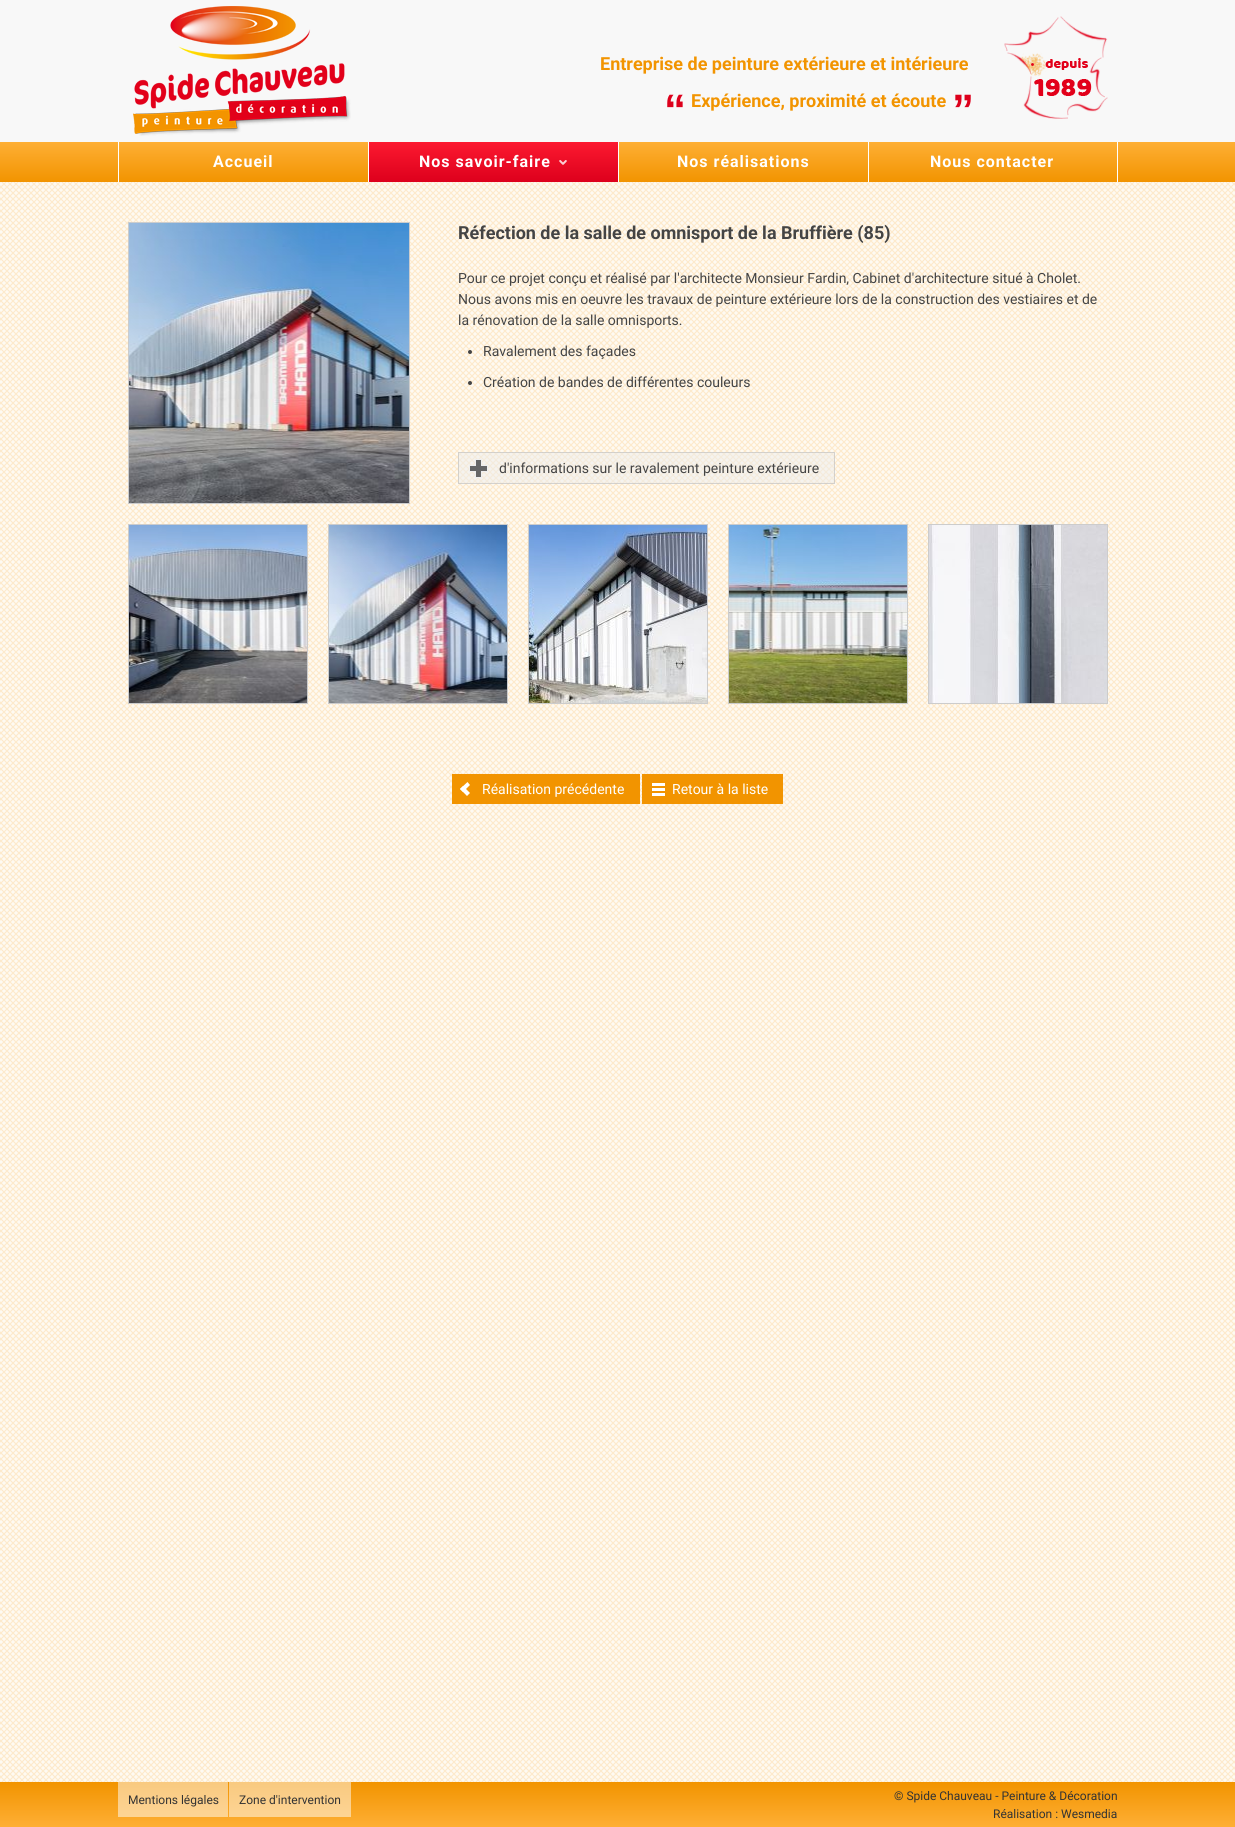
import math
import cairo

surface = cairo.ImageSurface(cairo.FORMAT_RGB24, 1235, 1827)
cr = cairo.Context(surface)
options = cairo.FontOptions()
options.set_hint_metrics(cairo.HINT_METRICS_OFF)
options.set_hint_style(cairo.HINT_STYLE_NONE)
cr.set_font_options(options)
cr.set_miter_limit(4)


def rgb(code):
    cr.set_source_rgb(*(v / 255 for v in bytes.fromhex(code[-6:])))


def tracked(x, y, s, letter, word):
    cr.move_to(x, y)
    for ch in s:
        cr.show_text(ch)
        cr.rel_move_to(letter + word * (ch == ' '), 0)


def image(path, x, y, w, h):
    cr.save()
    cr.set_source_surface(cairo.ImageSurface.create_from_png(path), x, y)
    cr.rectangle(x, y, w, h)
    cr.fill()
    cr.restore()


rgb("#ffffff")
cr.paint()
image("img/1.png", 0, 182, 1235, 1600)
rgb("#f8f8f8")
cr.rectangle(0, 0, 1235, 142)
cr.fill()
image("img/2.png", 133, 6, 218, 130)
image("img/3.png", 1004, 16, 104, 103)
gradient = cairo.LinearGradient(618, 142, 618, 182)
gradient.add_color_stop_rgba(0, 0.996, 0.686, 0.208, 1)
gradient.add_color_stop_rgba(1, 0.949, 0.58, 0, 1)
cr.set_source(gradient)
cr.rectangle(0, 142, 1235, 40)
cr.fill()
rgb("#ffffff")
cr.rectangle(118, 142, 1, 40)
cr.fill()
cr.rectangle(368, 142, 1, 40)
cr.fill()
gradient = cairo.LinearGradient(494, 142, 494, 182)
gradient.add_color_stop_rgba(0, 0.988, 0.098, 0.188, 1)
gradient.add_color_stop_rgba(1, 0.867, 0, 0.11, 1)
cr.set_source(gradient)
cr.rectangle(369, 142, 249, 40)
cr.fill()
image("img/4.png", 559, 160, 8, 5)
for x, y, w, h, color in [
    (618, 142, 1, 40, "#ffffff"),
    (1117, 142, 1, 40, "#ffffff"),
    (868, 142, 1, 40, "#ffffff"),
]:
    rgb(color)
    cr.rectangle(x, y, w, h)
    cr.fill()
cr.rectangle(128.5, 222.5, 281, 281)
rgb("#cccccc")
cr.set_line_width(1)
cr.stroke()
image("img/5.png", 129, 223, 280, 280)
rgb("#444444")
cr.arc(470, 352, 2, 0, 2 * math.pi)
cr.fill()
cr.arc(470, 383, 2, 0, 2 * math.pi)
cr.fill()
cr.set_source_rgba(0.929, 0.929, 0.929, 0.5)
cr.rectangle(458, 452, 377, 32)
cr.fill()
image("img/6.png", 469, 459, 19, 19)
cr.rectangle(458.5, 452.5, 376, 31)
cr.set_source_rgba(0.702, 0.702, 0.702, 0.5)
cr.stroke()
cr.rectangle(128.5, 524.5, 179, 179)
rgb("#cccccc")
cr.stroke()
image("img/7.png", 129, 525, 178, 178)
cr.rectangle(328.5, 524.5, 179, 179)
cr.stroke()
image("img/8.png", 329, 525, 178, 178)
cr.rectangle(528.5, 524.5, 179, 179)
cr.stroke()
image("img/9.png", 529, 525, 178, 178)
cr.rectangle(728.5, 524.5, 179, 179)
cr.stroke()
image("img/10.png", 729, 525, 178, 178)
cr.rectangle(928.5, 524.5, 179, 179)
cr.stroke()
image("img/11.png", 929, 525, 178, 178)
rgb("#f29400")
cr.rectangle(452, 774, 188, 30)
cr.fill()
rgb("#ffffff")
cr.new_path()
cr.move_to(467, 796)
cr.line_to(460, 789)
cr.line_to(463, 786)
cr.line_to(470, 793)
cr.close_path()
cr.fill()
cr.new_path()
cr.move_to(463, 792)
cr.line_to(460, 789)
cr.line_to(467.5, 782)
cr.line_to(470, 785)
cr.close_path()
cr.fill()
for x, y, w, h, color in [
    (642, 774, 141, 30, "#f29400"),
    (652, 783, 13, 3, "#ffffff"),
    (652, 788, 13, 3, "#ffffff"),
    (652, 793, 13, 3, "#ffffff"),
]:
    rgb(color)
    cr.rectangle(x, y, w, h)
    cr.fill()
gradient = cairo.LinearGradient(618, 1782, 618, 1827)
gradient.add_color_stop_rgba(0, 0.949, 0.58, 0, 1)
gradient.add_color_stop_rgba(1, 0.996, 0.686, 0.208, 1)
cr.set_source(gradient)
cr.rectangle(0, 1782, 1235, 45)
cr.fill()
cr.set_source_rgba(1, 1, 1, 0.5)
cr.rectangle(118, 1782, 110, 35)
cr.fill()
cr.rectangle(229, 1782, 122, 35)
cr.fill()
cr.select_font_face("Roboto", cairo.FONT_SLANT_NORMAL, cairo.FONT_WEIGHT_BOLD)
cr.set_font_size(18)
rgb("#f29400")
cr.move_to(600, 70)
cr.show_text("Entreprise de peinture extérieure et intérieure")
cr.select_font_face("Liberation Sans", cairo.FONT_SLANT_NORMAL, cairo.FONT_WEIGHT_BOLD)
cr.set_font_size(44)
rgb("#dd001c")
cr.move_to(664, 125)
cr.show_text("“")
cr.select_font_face("Roboto", cairo.FONT_SLANT_NORMAL, cairo.FONT_WEIGHT_BOLD)
cr.set_font_size(18)
rgb("#f29400")
cr.move_to(691, 107)
cr.show_text("Expérience, proximité et écoute")
cr.select_font_face("Liberation Sans", cairo.FONT_SLANT_NORMAL, cairo.FONT_WEIGHT_BOLD)
cr.set_font_size(44)
rgb("#dd001c")
cr.move_to(952, 125)
cr.show_text("”")
cr.select_font_face("Roboto", cairo.FONT_SLANT_NORMAL, cairo.FONT_WEIGHT_BOLD)
cr.set_font_size(16)
rgb("#ffffff")
for x, y, s in [
    (213, 167, "Accueil"),
    (419, 167, "Nos savoir-faire"),
    (677, 167, "Nos réalisations"),
    (930, 167, "Nous contacter"),
]:
    tracked(x, y, s, 1, 0)
cr.set_font_size(18)
rgb("#444444")
cr.move_to(458, 239)
cr.show_text("Réfection de la salle de omnisport de la Bruffière (85)")
cr.select_font_face("Roboto")
cr.set_font_size(14)
for x, y, s in [
    (458, 283, "Pour ce projet conçu et réalisé par l'architecte Monsieur Fardin, Cabinet d'architecture situé à Cholet."),
    (458, 304, "Nous avons mis en oeuvre les travaux de peinture extérieure lors de la construction des vestiaires et de"),
    (458, 325, "la rénovation de la salle omnisports."),
    (483, 356, "Ravalement des façades"),
    (483, 387, "Création de bandes de différentes couleurs"),
    (499, 473, "d'informations sur le ravalement peinture extérieure"),
]:
    cr.move_to(x, y)
    cr.show_text(s)
rgb("#ffffff")
cr.move_to(482, 794)
cr.show_text("Réalisation précédente")
cr.move_to(672, 794)
cr.show_text("Retour à la liste")
cr.set_font_size(12)
rgb("#333333")
for x, y, s in [
    (128, 1804, "Mentions légales"),
    (239, 1804, "Zone d'intervention"),
    (894, 1800, "© Spide Chauveau - Peinture & Décoration"),
    (993, 1818, "Réalisation : Wesmedia"),
]:
    cr.move_to(x, y)
    cr.show_text(s)
surface.write_to_png("page.png")
